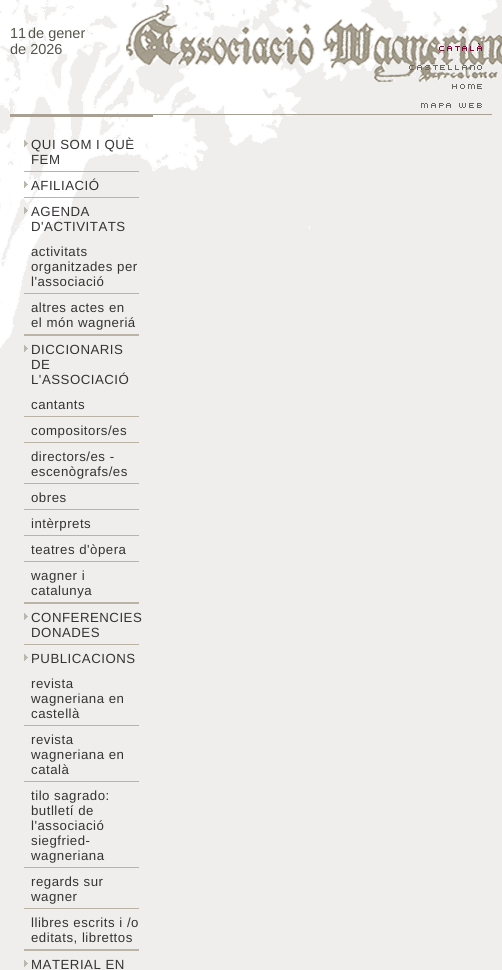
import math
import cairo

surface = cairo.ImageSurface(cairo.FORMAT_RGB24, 502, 970)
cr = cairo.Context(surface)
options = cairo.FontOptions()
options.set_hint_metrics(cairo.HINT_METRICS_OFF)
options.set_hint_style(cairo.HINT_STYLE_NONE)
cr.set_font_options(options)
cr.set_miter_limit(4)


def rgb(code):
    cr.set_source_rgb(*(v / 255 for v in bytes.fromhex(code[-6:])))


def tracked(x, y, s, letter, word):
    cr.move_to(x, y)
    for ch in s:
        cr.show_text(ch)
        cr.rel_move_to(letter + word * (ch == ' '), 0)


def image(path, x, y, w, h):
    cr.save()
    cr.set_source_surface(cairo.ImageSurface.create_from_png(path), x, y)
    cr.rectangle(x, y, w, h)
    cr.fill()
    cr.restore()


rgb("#efeeec")
cr.paint()
image("img/1.png", 0, 0, 498, 348)
image("img/2.png", 126, 5, 376, 77)
image("img/3.png", 439, 43, 43, 8)
image("img/4.png", 409, 65, 73, 5)
image("img/5.png", 452, 84, 30, 5)
image("img/6.png", 421, 103, 61, 5)
for x, y, w, h, color in [
    (10, 114, 482, 1, "#a8a092"),
    (10, 115, 143, 2, "#a8a092"),
    (24, 171, 115, 1, "#bab3a6"),
]:
    rgb(color)
    cr.rectangle(x, y, w, h)
    cr.fill()
image("img/7.png", 24, 140, 4, 7)
cr.rectangle(24, 197, 115, 1)
cr.fill()
image("img/8.png", 24, 181, 4, 7)
cr.rectangle(24, 334, 115, 2)
cr.fill()
image("img/9.png", 24, 207, 4, 7)
cr.rectangle(24, 293, 115, 1)
cr.fill()
cr.rectangle(24, 602, 115, 2)
cr.fill()
image("img/10.png", 24, 345, 4, 7)
for x, y, w, h, color in [
    (24, 416, 115, 1, "#bab3a6"),
    (24, 442, 115, 1, "#bab3a6"),
    (24, 483, 115, 1, "#bab3a6"),
    (24, 509, 115, 1, "#bab3a6"),
    (24, 535, 115, 1, "#bab3a6"),
    (24, 561, 115, 1, "#bab3a6"),
    (24, 644, 115, 1, "#bab3a6"),
]:
    rgb(color)
    cr.rectangle(x, y, w, h)
    cr.fill()
image("img/10.png", 24, 613, 4, 7)
cr.rectangle(24, 949, 115, 2)
cr.fill()
image("img/10.png", 24, 654, 4, 7)
for x, y, w, h, color in [
    (24, 725, 115, 1, "#bab3a6"),
    (24, 781, 115, 1, "#bab3a6"),
    (24, 867, 115, 1, "#bab3a6"),
    (24, 908, 115, 1, "#bab3a6"),
]:
    rgb(color)
    cr.rectangle(x, y, w, h)
    cr.fill()
image("img/10.png", 24, 960, 4, 7)
cr.select_font_face("Liberation Sans")
cr.set_font_size(14.5)
rgb("#54554a")
for x, y, s in [
    (10, 38, "11"),
    (28, 38, "de gener"),
    (10, 54, "de 2026"),
]:
    cr.move_to(x, y)
    cr.show_text(s)
cr.set_font_size(13.25)
rgb("#333333")
for x, y, s in [
    (31, 149, "QUI SOM I QUÈ"),
    (31, 164, "FEM"),
    (31, 190, "AFILIACIÓ"),
    (31, 216, "AGENDA"),
    (31, 231, "D'ACTIVITATS"),
    (31, 256, "activitats"),
    (31, 271, "organitzades per"),
    (31, 286, "l'associació"),
    (31, 312, "altres actes en"),
    (31, 327, "el món wagneriá"),
    (31, 354, "DICCIONARIS"),
    (31, 369, "DE"),
    (31, 384, "L'ASSOCIACIÓ"),
    (31, 409, "cantants"),
    (31, 435, "compositors/es"),
    (31, 461, "directors/es -"),
    (31, 476, "escenògrafs/es"),
    (31, 502, "obres"),
    (31, 528, "intèrprets"),
    (31, 554, "teatres d'òpera"),
    (31, 580, "wagner i"),
    (31, 595, "catalunya"),
    (31, 622, "CONFERENCIES"),
    (31, 637, "DONADES"),
    (31, 663, "PUBLICACIONS"),
    (31, 688, "revista"),
    (31, 703, "wagneriana en"),
    (31, 718, "castellà"),
    (31, 744, "revista"),
    (31, 759, "wagneriana en"),
    (31, 774, "català"),
    (31, 800, "tilo sagrado:"),
    (31, 815, "butlletí de"),
    (31, 830, "l'associació"),
    (31, 845, "siegfried-"),
    (31, 860, "wagneriana"),
    (31, 886, "regards sur"),
    (31, 901, "wagner"),
    (31, 927, "llibres escrits i /o"),
    (31, 942, "editats, librettos"),
    (31, 969, "MATERIAL EN"),
]:
    tracked(x, y, s, 0.5, 0)
surface.write_to_png("page.png")
